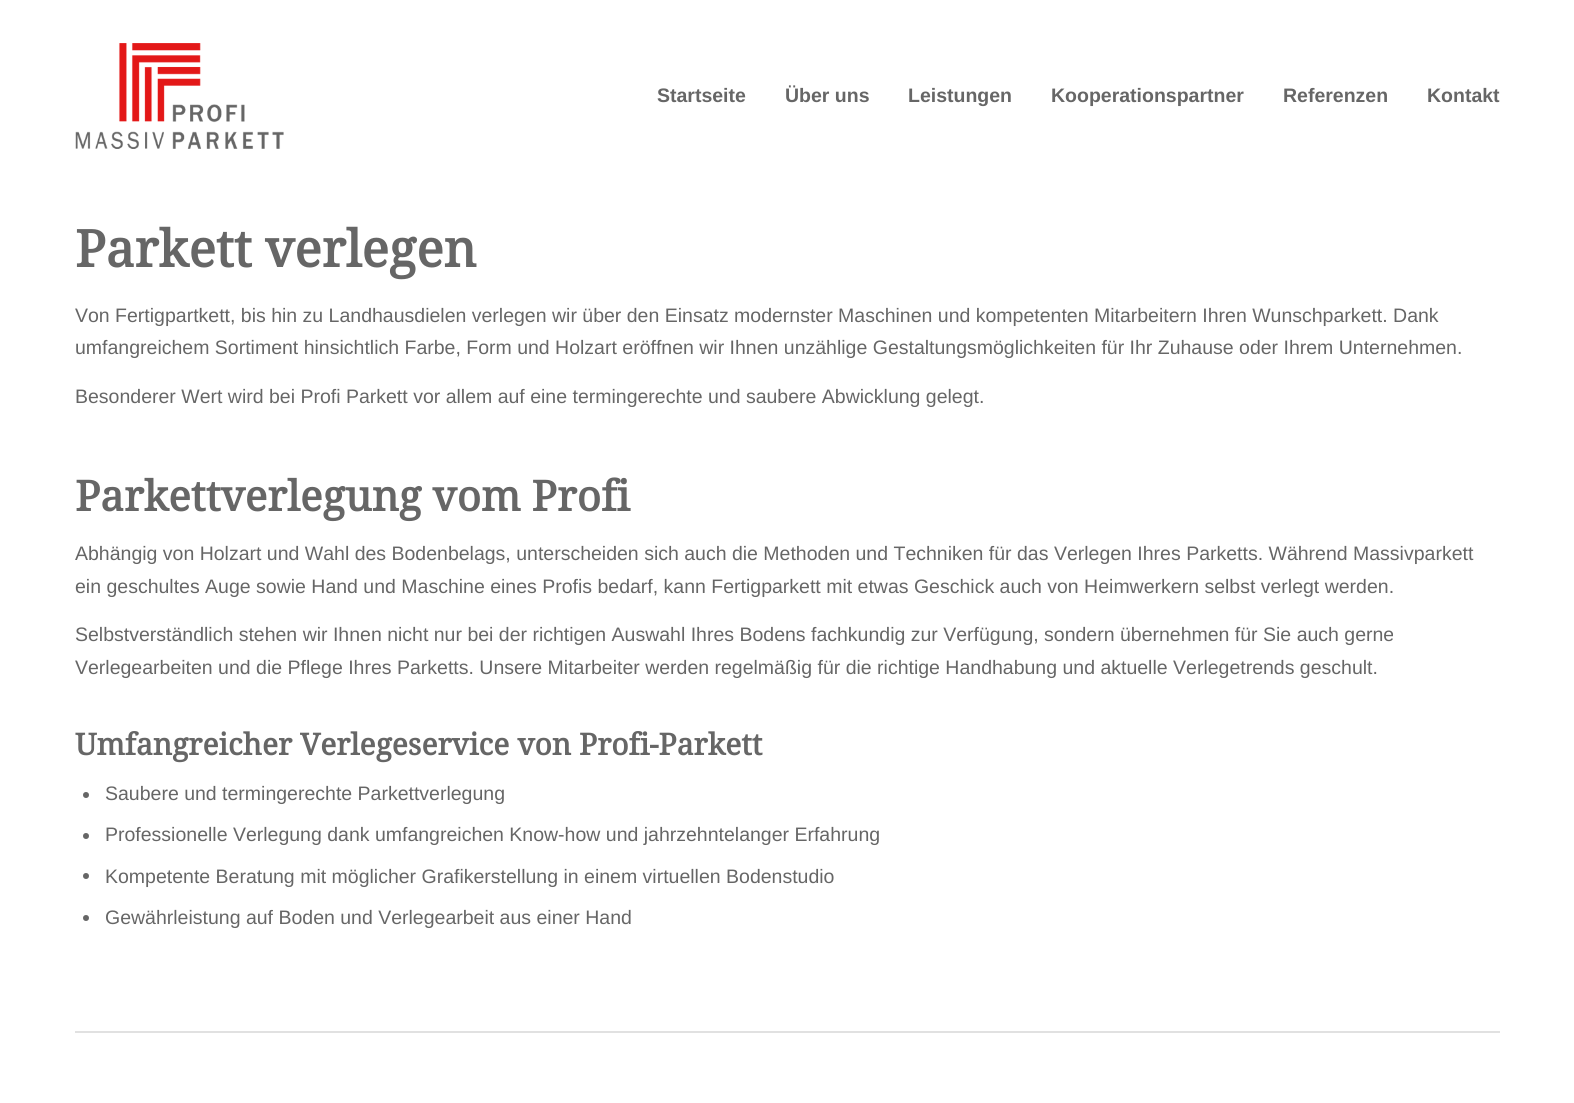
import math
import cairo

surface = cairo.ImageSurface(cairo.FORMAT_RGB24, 1574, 1103)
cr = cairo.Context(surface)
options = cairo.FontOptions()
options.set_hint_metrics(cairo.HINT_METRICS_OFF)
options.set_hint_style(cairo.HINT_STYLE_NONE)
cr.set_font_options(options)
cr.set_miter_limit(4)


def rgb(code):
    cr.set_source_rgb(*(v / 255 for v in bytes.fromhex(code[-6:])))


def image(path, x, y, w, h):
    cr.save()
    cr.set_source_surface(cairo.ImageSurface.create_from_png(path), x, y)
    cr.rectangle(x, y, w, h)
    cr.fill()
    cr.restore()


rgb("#ffffff")
cr.paint()
image("img/1.png", 75, 43, 209, 106)
rgb("#666666")
cr.arc(86, 795, 3, 0, 2 * math.pi)
cr.fill()
cr.arc(86, 836, 3, 0, 2 * math.pi)
cr.fill()
cr.arc(86, 876, 3, 0, 2 * math.pi)
cr.fill()
cr.arc(86, 918, 3, 0, 2 * math.pi)
cr.fill()
rgb("#e1e1e1")
cr.rectangle(75, 1031, 1425, 2)
cr.fill()
cr.select_font_face("Liberation Sans", cairo.FONT_SLANT_NORMAL, cairo.FONT_WEIGHT_BOLD)
cr.set_font_size(19.5)
rgb("#666666")
for x, y, s in [
    (657, 102, "Startseite"),
    (785, 102, "Über uns"),
    (908, 102, "Leistungen"),
    (1051, 102, "Kooperationspartner"),
    (1283, 102, "Referenzen"),
    (1427, 102, "Kontakt"),
]:
    cr.move_to(x, y)
    cr.show_text(s)
cr.select_font_face("Droid Serif", cairo.FONT_SLANT_NORMAL, cairo.FONT_WEIGHT_BOLD)
cr.set_font_size(51)
cr.move_to(75, 267)
cr.show_text("Parkett verlegen")
cr.select_font_face("Liberation Sans")
cr.set_font_size(19.5)
for x, y, s in [
    (75, 322, "Von Fertigpartkett, bis hin zu Landhausdielen verlegen wir über den Einsatz modernster Maschinen und kompetenten Mitarbeitern Ihren Wunschparkett. Dank"),
    (75, 354, "umfangreichem Sortiment hinsichtlich Farbe, Form und Holzart eröffnen wir Ihnen unzählige Gestaltungsmöglichkeiten für Ihr Zuhause oder Ihrem Unternehmen."),
    (75, 403, "Besonderer Wert wird bei Profi Parkett vor allem auf eine termingerechte und saubere Abwicklung gelegt."),
]:
    cr.move_to(x, y)
    cr.show_text(s)
cr.select_font_face("Droid Serif", cairo.FONT_SLANT_NORMAL, cairo.FONT_WEIGHT_BOLD)
cr.set_font_size(42)
cr.move_to(75, 511)
cr.show_text("Parkettverlegung vom Profi")
cr.select_font_face("Liberation Sans")
cr.set_font_size(19.5)
for x, y, s in [
    (75, 560, "Abhängig von Holzart und Wahl des Bodenbelags, unterscheiden sich auch die Methoden und Techniken für das Verlegen Ihres Parketts. Während Massivparkett"),
    (75, 593, "ein geschultes Auge sowie Hand und Maschine eines Profis bedarf, kann Fertigparkett mit etwas Geschick auch von Heimwerkern selbst verlegt werden."),
    (75, 641, "Selbstverständlich stehen wir Ihnen nicht nur bei der richtigen Auswahl Ihres Bodens fachkundig zur Verfügung, sondern übernehmen für Sie auch gerne"),
    (75, 674, "Verlegearbeiten und die Pflege Ihres Parketts. Unsere Mitarbeiter werden regelmäßig für die richtige Handhabung und aktuelle Verlegetrends geschult."),
]:
    cr.move_to(x, y)
    cr.show_text(s)
cr.select_font_face("Droid Serif", cairo.FONT_SLANT_NORMAL, cairo.FONT_WEIGHT_BOLD)
cr.set_font_size(30)
cr.move_to(75, 755)
cr.show_text("Umfangreicher Verlegeservice von Profi-Parkett")
cr.select_font_face("Liberation Sans")
cr.set_font_size(19.5)
for x, y, s in [
    (105, 800, "Saubere und termingerechte Parkettverlegung"),
    (105, 841, "Professionelle Verlegung dank umfangreichen Know-how und jahrzehntelanger Erfahrung"),
    (105, 883, "Kompetente Beratung mit möglicher Grafikerstellung in einem virtuellen Bodenstudio"),
    (105, 924, "Gewährleistung auf Boden und Verlegearbeit aus einer Hand"),
]:
    cr.move_to(x, y)
    cr.show_text(s)
surface.write_to_png("page.png")
